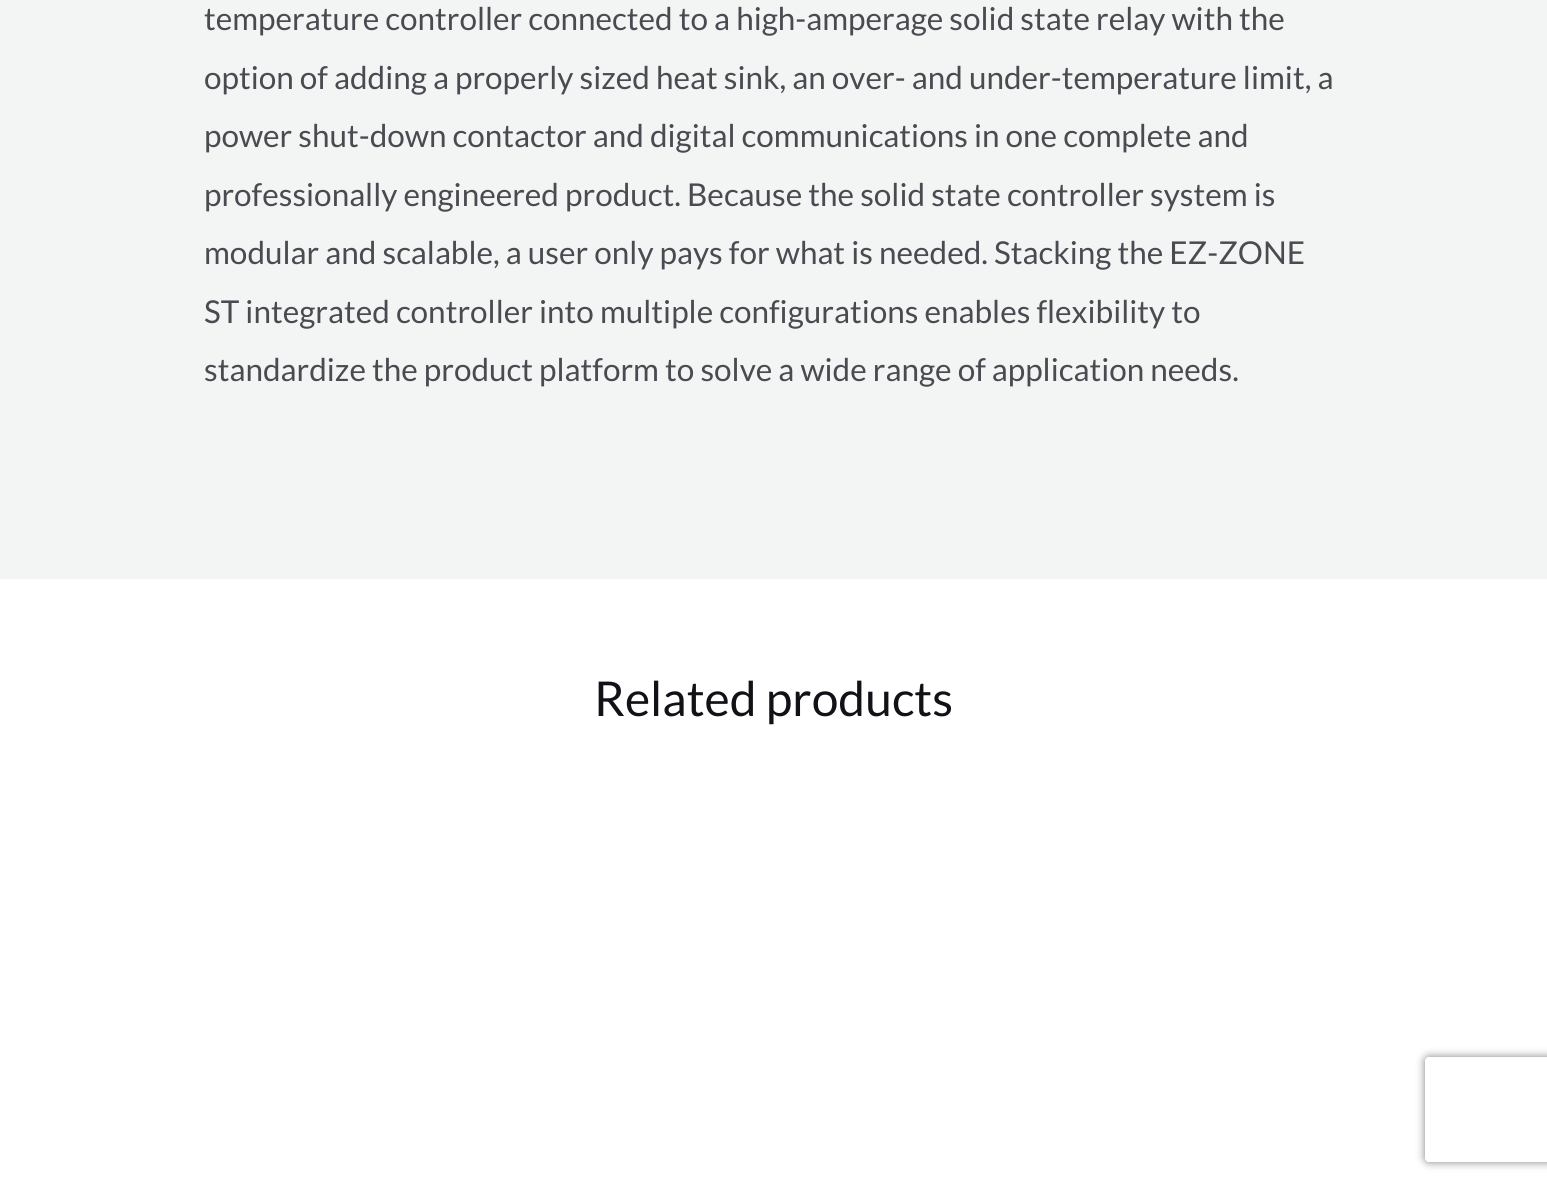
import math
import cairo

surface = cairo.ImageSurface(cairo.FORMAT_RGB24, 1547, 1185)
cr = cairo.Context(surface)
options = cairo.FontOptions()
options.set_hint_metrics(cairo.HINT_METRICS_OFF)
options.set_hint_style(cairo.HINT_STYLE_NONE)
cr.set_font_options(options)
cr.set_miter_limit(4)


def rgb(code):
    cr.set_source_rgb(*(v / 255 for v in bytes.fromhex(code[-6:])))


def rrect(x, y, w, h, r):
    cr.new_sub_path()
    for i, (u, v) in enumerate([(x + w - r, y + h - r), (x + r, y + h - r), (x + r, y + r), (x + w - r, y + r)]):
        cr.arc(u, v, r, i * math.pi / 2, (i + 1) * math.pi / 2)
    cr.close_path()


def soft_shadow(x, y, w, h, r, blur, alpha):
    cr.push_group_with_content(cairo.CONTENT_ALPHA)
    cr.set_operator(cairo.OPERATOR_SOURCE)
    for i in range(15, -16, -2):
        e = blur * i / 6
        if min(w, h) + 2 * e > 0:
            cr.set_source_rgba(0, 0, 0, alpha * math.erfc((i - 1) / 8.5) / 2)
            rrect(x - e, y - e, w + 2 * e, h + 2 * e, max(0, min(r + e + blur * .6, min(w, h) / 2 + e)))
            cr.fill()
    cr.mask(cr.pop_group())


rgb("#f3f5f5")
cr.paint()
rgb("#ffffff")
cr.rectangle(0, 579, 1547, 606)
cr.fill()
cr.save()
cr.set_fill_rule(cairo.FILL_RULE_EVEN_ODD)
cr.new_path()
cr.move_to(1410, 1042)
cr.line_to(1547, 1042)
cr.line_to(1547, 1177)
cr.line_to(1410, 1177)
cr.close_path()
cr.move_to(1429, 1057)
cr.line_to(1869, 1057)
cr.curve_to(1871, 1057, 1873, 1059, 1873, 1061)
cr.line_to(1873, 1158)
cr.curve_to(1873, 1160, 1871, 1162, 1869, 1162)
cr.line_to(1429, 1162)
cr.curve_to(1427, 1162, 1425, 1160, 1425, 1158)
cr.line_to(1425, 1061)
cr.curve_to(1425, 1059, 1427, 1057, 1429, 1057)
cr.close_path()
cr.clip()
rgb("#808080")
soft_shadow(1425, 1057, 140, 105, 4, 4.5, 1)
cr.restore()
cr.select_font_face("Lato")
cr.set_font_size(31.5)
rgb("#494b51")
for x, y, s in [
    (204, 30, "temperature controller connected to a high-amperage solid state relay with the"),
    (204, 89, "option of adding a properly sized heat sink, an over- and under-temperature limit, a"),
    (204, 147, "power shut-down contactor and digital communications in one complete and"),
    (204, 206, "professionally engineered product. Because the solid state controller system is"),
    (204, 264, "modular and scalable, a user only pays for what is needed. Stacking the EZ-ZONE"),
    (204, 323, "ST integrated controller into multiple configurations enables flexibility to"),
    (204, 381, "standardize the product platform to solve a wide range of application needs."),
]:
    cr.move_to(x, y)
    cr.show_text(s)
cr.set_font_size(48)
rgb("#101218")
cr.move_to(594, 716)
cr.show_text("Related products")
surface.write_to_png("page.png")
